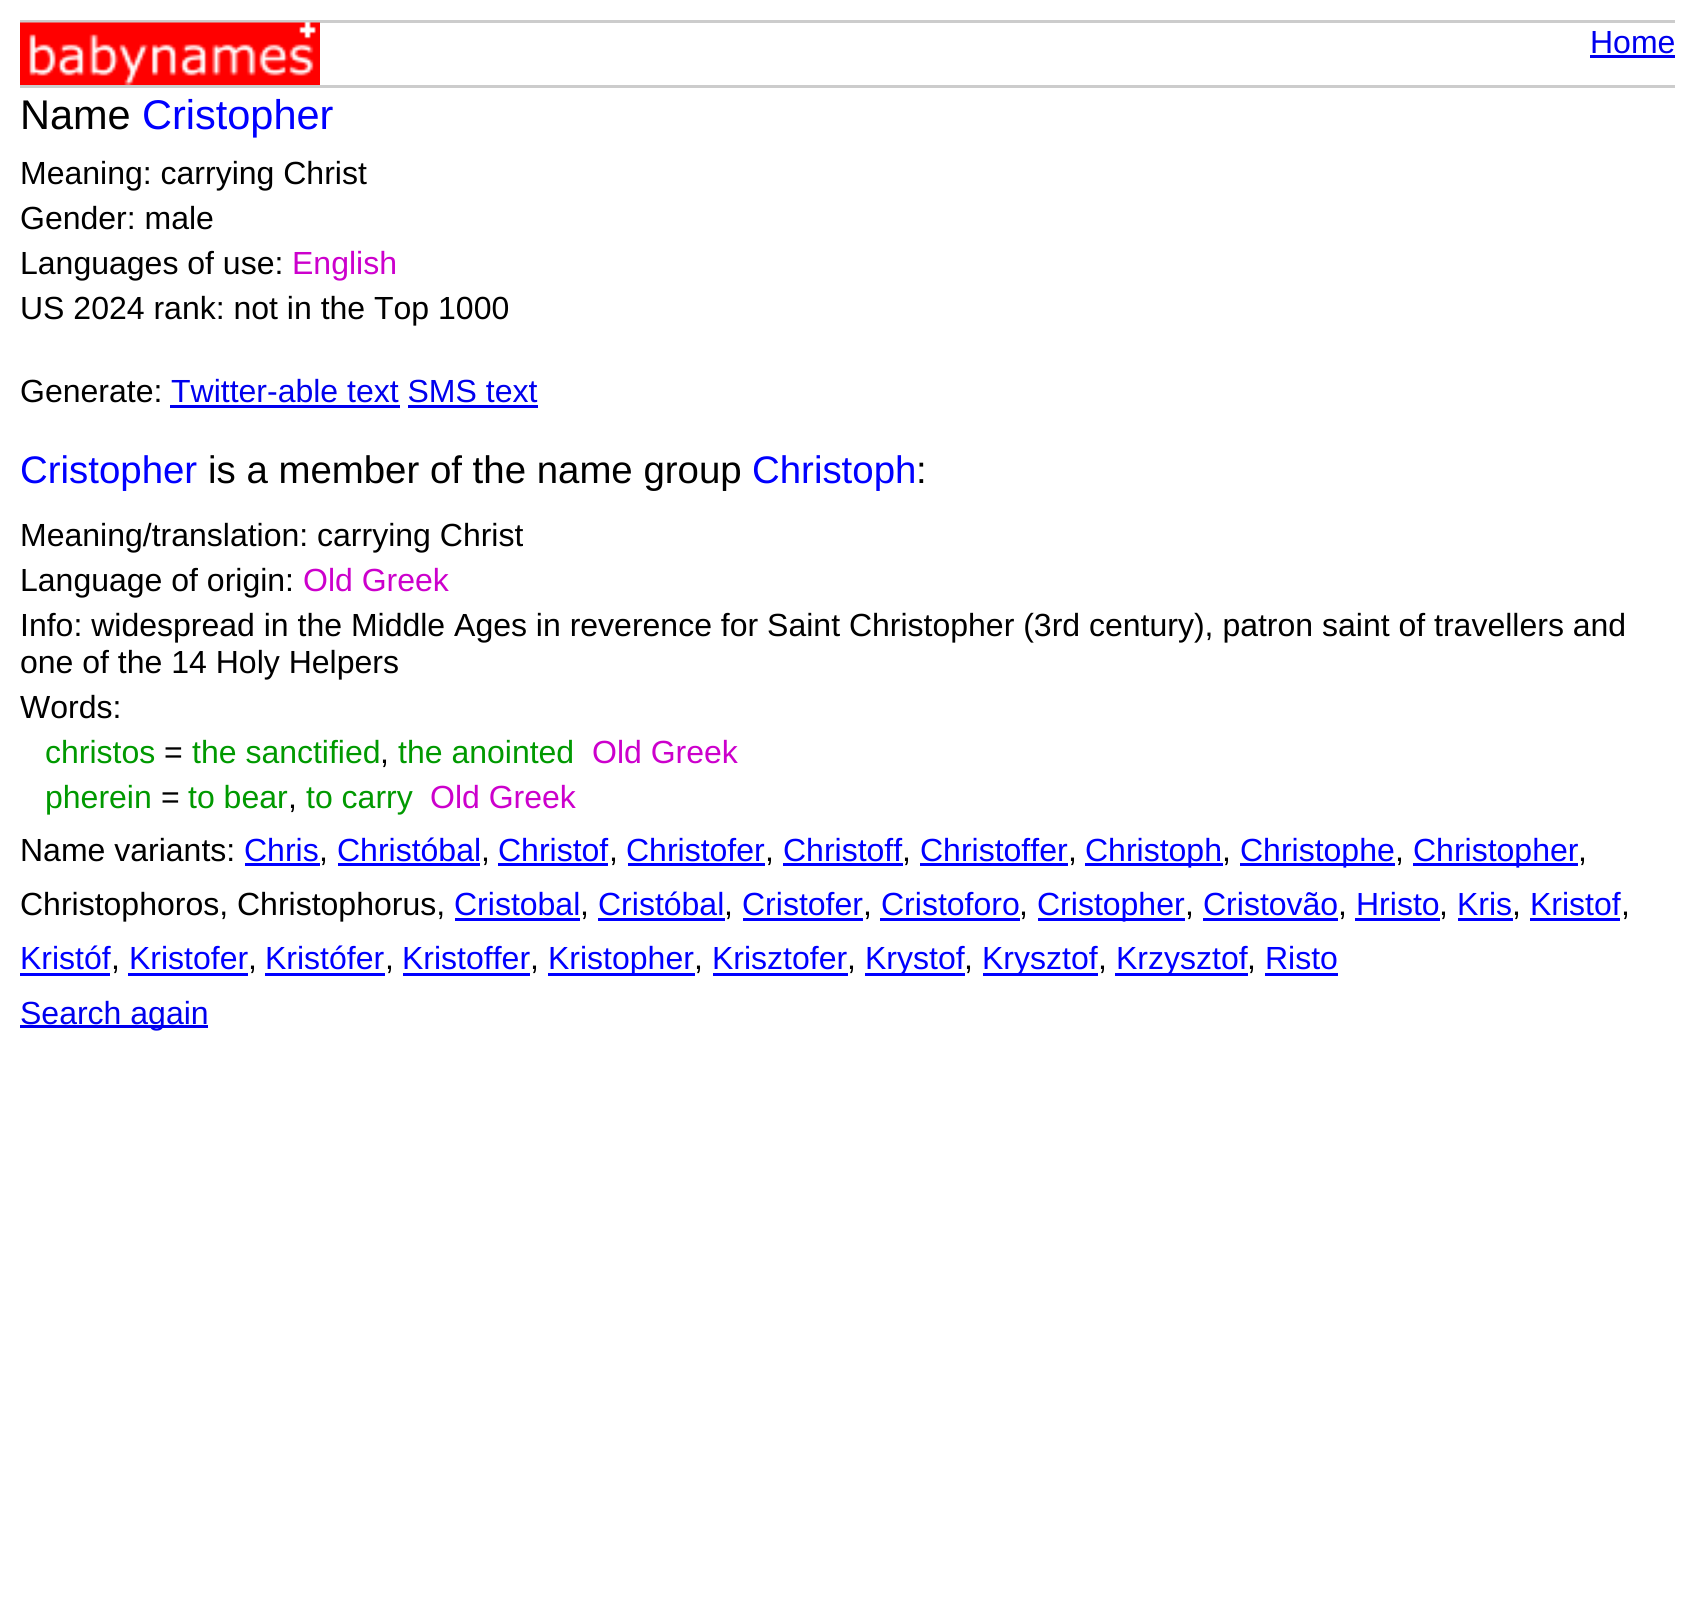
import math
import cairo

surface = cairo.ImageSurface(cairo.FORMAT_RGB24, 1694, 1604)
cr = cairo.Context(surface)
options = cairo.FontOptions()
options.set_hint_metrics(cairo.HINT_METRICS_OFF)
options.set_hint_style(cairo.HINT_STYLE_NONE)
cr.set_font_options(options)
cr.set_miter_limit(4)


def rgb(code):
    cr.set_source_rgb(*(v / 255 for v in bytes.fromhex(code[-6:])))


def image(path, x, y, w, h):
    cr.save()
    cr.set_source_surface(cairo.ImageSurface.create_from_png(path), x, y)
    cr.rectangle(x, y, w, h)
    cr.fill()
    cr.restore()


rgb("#ffffff")
cr.paint()
rgb("#cccccc")
cr.rectangle(20, 20, 1655, 3)
cr.fill()
cr.rectangle(20, 85, 1655, 3)
cr.fill()
image("img/1.png", 20, 22, 300, 63)
for x, y, w, h, color in [
    (1590, 55, 85, 3, "#0000ee"),
    (170, 405, 230, 3, "#0000ee"),
    (408, 405, 130, 3, "#0000ee"),
    (245, 863, 75, 3, "#0000ff"),
    (338, 863, 142, 3, "#0000ff"),
    (498, 863, 110, 3, "#0000ff"),
    (628, 863, 137, 3, "#0000ff"),
    (783, 863, 120, 3, "#0000ff"),
    (920, 863, 148, 3, "#0000ff"),
    (1085, 863, 138, 3, "#0000ff"),
    (1240, 863, 155, 3, "#0000ff"),
    (1413, 863, 165, 3, "#0000ff"),
    (455, 918, 125, 3, "#0000ff"),
    (598, 918, 127, 3, "#0000ff"),
    (743, 918, 120, 3, "#0000ff"),
    (880, 918, 140, 3, "#0000ff"),
    (1038, 918, 147, 3, "#0000ff"),
    (1203, 918, 135, 3, "#0000ff"),
    (1355, 918, 85, 3, "#0000ff"),
    (1458, 918, 55, 3, "#0000ff"),
    (1530, 918, 90, 3, "#0000ff"),
    (20, 973, 90, 3, "#0000ff"),
    (128, 973, 120, 3, "#0000ff"),
    (265, 973, 120, 3, "#0000ff"),
    (403, 973, 127, 3, "#0000ff"),
    (548, 973, 147, 3, "#0000ff"),
    (713, 973, 135, 3, "#0000ff"),
    (865, 973, 100, 3, "#0000ff"),
    (983, 973, 115, 3, "#0000ff"),
    (1115, 973, 133, 3, "#0000ff"),
    (1265, 973, 73, 3, "#0000ff"),
    (20, 1025, 188, 3, "#0000ee"),
]:
    rgb(color)
    cr.rectangle(x, y, w, h)
    cr.fill()
cr.select_font_face("Liberation Sans")
cr.set_font_size(32)
cr.move_to(1590, 53)
cr.show_text("Home")
cr.set_font_size(41.5)
rgb("#000000")
cr.move_to(20, 129)
cr.show_text("Name")
rgb("#0000ff")
cr.move_to(142, 129)
cr.show_text("Cristopher")
cr.set_font_size(32)
rgb("#000000")
for x, y, s in [
    (20, 184, "Meaning: carrying Christ"),
    (20, 229, "Gender: male"),
    (20, 274, "Languages of use:"),
]:
    cr.move_to(x, y)
    cr.show_text(s)
rgb("#cc00cc")
cr.move_to(292, 274)
cr.show_text("English")
rgb("#000000")
cr.move_to(20, 319)
cr.show_text("US 2024 rank: not in the Top 1000")
cr.move_to(20, 402)
cr.show_text("Generate:")
rgb("#0000ee")
cr.move_to(171, 402)
cr.show_text("Twitter-able text SMS text")
cr.set_font_size(38.4)
rgb("#0000ff")
cr.move_to(20, 483)
cr.show_text("Cristopher")
rgb("#000000")
cr.move_to(208, 483)
cr.show_text("is a member of the name group")
rgb("#0000ff")
cr.move_to(752, 483)
cr.show_text("Christoph")
rgb("#000000")
cr.move_to(916, 483)
cr.show_text(":")
cr.set_font_size(32)
cr.move_to(20, 546)
cr.show_text("Meaning/translation: carrying Christ")
cr.move_to(20, 591)
cr.show_text("Language of origin:")
rgb("#cc00cc")
cr.move_to(303, 591)
cr.show_text("Old Greek")
rgb("#000000")
for x, y, s in [
    (20, 636, "Info: widespread in the Middle Ages in reverence for Saint Christopher (3rd century), patron saint of travellers and"),
    (20, 673, "one of the 14 Holy Helpers"),
    (20, 718, "Words:"),
]:
    cr.move_to(x, y)
    cr.show_text(s)
rgb("#009900")
cr.move_to(45, 763)
cr.show_text("christos")
rgb("#000000")
cr.move_to(164, 763)
cr.show_text("=")
rgb("#009900")
cr.move_to(192, 763)
cr.show_text("the sanctified")
cr.move_to(398, 763)
cr.show_text("the anointed")
rgb("#cc00cc")
cr.move_to(592, 763)
cr.show_text("Old Greek")
rgb("#000000")
cr.move_to(380, 763)
cr.show_text(",")
rgb("#009900")
cr.move_to(45, 808)
cr.show_text("pherein")
rgb("#000000")
cr.move_to(161, 808)
cr.show_text("=")
rgb("#009900")
cr.move_to(188, 808)
cr.show_text("to bear")
cr.move_to(306, 808)
cr.show_text("to carry")
rgb("#cc00cc")
cr.move_to(430, 808)
cr.show_text("Old Greek")
rgb("#000000")
cr.move_to(288, 808)
cr.show_text(",")
cr.move_to(20, 861)
cr.show_text("Name variants:")
rgb("#0000ff")
cr.move_to(244, 861)
cr.show_text("Chris")
rgb("#000000")
cr.move_to(319, 861)
cr.show_text(",")
rgb("#0000ff")
cr.move_to(337, 861)
cr.show_text("Christóbal")
rgb("#000000")
cr.move_to(481, 861)
cr.show_text(",")
rgb("#0000ff")
cr.move_to(498, 861)
cr.show_text("Christof")
rgb("#000000")
cr.move_to(609, 861)
cr.show_text(",")
rgb("#0000ff")
cr.move_to(626, 861)
cr.show_text("Christofer")
rgb("#000000")
cr.move_to(765, 861)
cr.show_text(",")
rgb("#0000ff")
cr.move_to(783, 861)
cr.show_text("Christoff")
rgb("#000000")
cr.move_to(902, 861)
cr.show_text(",")
rgb("#0000ff")
cr.move_to(920, 861)
cr.show_text("Christoffer")
rgb("#000000")
cr.move_to(1068, 861)
cr.show_text(",")
rgb("#0000ff")
cr.move_to(1085, 861)
cr.show_text("Christoph")
rgb("#000000")
cr.move_to(1222, 861)
cr.show_text(",")
rgb("#0000ff")
cr.move_to(1240, 861)
cr.show_text("Christophe")
rgb("#000000")
cr.move_to(1395, 861)
cr.show_text(",")
rgb("#0000ff")
cr.move_to(1413, 861)
cr.show_text("Christopher")
rgb("#000000")
cr.move_to(1578, 861)
cr.show_text(",")
cr.move_to(20, 915)
cr.show_text("Christophoros, Christophorus,")
rgb("#0000ff")
cr.move_to(454, 915)
cr.show_text("Cristobal")
rgb("#000000")
cr.move_to(580, 915)
cr.show_text(",")
rgb("#0000ff")
cr.move_to(598, 915)
cr.show_text("Cristóbal")
rgb("#000000")
cr.move_to(724, 915)
cr.show_text(",")
rgb("#0000ff")
cr.move_to(742, 915)
cr.show_text("Cristofer")
rgb("#000000")
cr.move_to(863, 915)
cr.show_text(",")
rgb("#0000ff")
cr.move_to(881, 915)
cr.show_text("Cristoforo")
rgb("#000000")
cr.move_to(1019, 915)
cr.show_text(",")
rgb("#0000ff")
cr.move_to(1037, 915)
cr.show_text("Cristopher")
rgb("#000000")
cr.move_to(1185, 915)
cr.show_text(",")
rgb("#0000ff")
cr.move_to(1203, 915)
cr.show_text("Cristovão")
rgb("#000000")
cr.move_to(1338, 915)
cr.show_text(",")
rgb("#0000ff")
cr.move_to(1356, 915)
cr.show_text("Hristo")
rgb("#000000")
cr.move_to(1439, 915)
cr.show_text(",")
rgb("#0000ff")
cr.move_to(1457, 915)
cr.show_text("Kris")
rgb("#000000")
cr.move_to(1512, 915)
cr.show_text(",")
rgb("#0000ff")
cr.move_to(1530, 915)
cr.show_text("Kristof")
rgb("#000000")
cr.move_to(1621, 915)
cr.show_text(",")
rgb("#0000ff")
cr.move_to(20, 969)
cr.show_text("Kristóf")
rgb("#000000")
cr.move_to(111, 969)
cr.show_text(",")
rgb("#0000ff")
cr.move_to(129, 969)
cr.show_text("Kristofer")
rgb("#000000")
cr.move_to(248, 969)
cr.show_text(",")
rgb("#0000ff")
cr.move_to(265, 969)
cr.show_text("Kristófer")
rgb("#000000")
cr.move_to(385, 969)
cr.show_text(",")
rgb("#0000ff")
cr.move_to(402, 969)
cr.show_text("Kristoffer")
rgb("#000000")
cr.move_to(530, 969)
cr.show_text(",")
rgb("#0000ff")
cr.move_to(548, 969)
cr.show_text("Kristopher")
rgb("#000000")
cr.move_to(694, 969)
cr.show_text(",")
rgb("#0000ff")
cr.move_to(712, 969)
cr.show_text("Krisztofer")
rgb("#000000")
cr.move_to(847, 969)
cr.show_text(",")
rgb("#0000ff")
cr.move_to(865, 969)
cr.show_text("Krystof")
rgb("#000000")
cr.move_to(964, 969)
cr.show_text(",")
rgb("#0000ff")
cr.move_to(982, 969)
cr.show_text("Krysztof")
rgb("#000000")
cr.move_to(1098, 969)
cr.show_text(",")
rgb("#0000ff")
cr.move_to(1116, 969)
cr.show_text("Krzysztof")
rgb("#000000")
cr.move_to(1247, 969)
cr.show_text(",")
rgb("#0000ff")
cr.move_to(1265, 969)
cr.show_text("Risto")
rgb("#0000ee")
cr.move_to(20, 1024)
cr.show_text("Search again")
surface.write_to_png("page.png")
